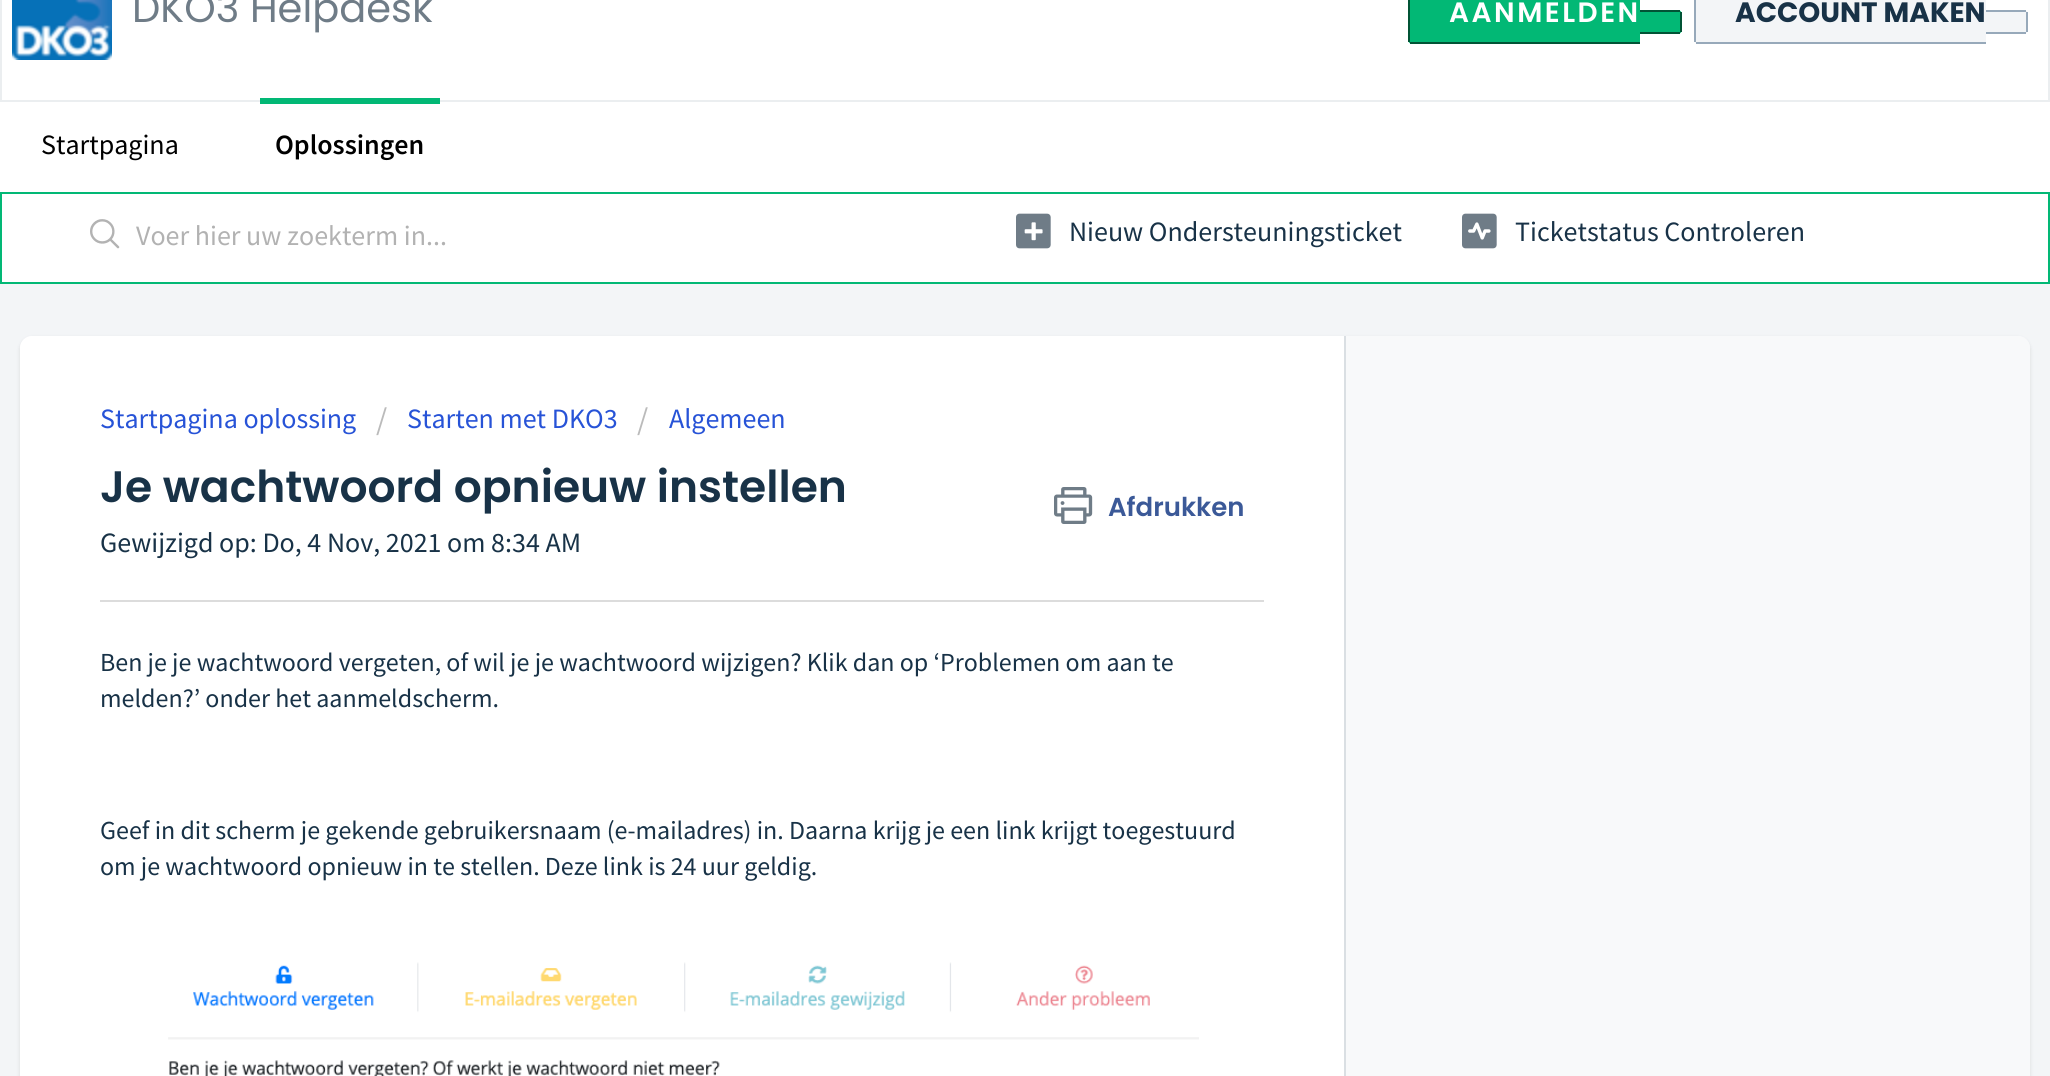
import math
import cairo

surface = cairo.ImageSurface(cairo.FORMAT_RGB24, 2050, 1076)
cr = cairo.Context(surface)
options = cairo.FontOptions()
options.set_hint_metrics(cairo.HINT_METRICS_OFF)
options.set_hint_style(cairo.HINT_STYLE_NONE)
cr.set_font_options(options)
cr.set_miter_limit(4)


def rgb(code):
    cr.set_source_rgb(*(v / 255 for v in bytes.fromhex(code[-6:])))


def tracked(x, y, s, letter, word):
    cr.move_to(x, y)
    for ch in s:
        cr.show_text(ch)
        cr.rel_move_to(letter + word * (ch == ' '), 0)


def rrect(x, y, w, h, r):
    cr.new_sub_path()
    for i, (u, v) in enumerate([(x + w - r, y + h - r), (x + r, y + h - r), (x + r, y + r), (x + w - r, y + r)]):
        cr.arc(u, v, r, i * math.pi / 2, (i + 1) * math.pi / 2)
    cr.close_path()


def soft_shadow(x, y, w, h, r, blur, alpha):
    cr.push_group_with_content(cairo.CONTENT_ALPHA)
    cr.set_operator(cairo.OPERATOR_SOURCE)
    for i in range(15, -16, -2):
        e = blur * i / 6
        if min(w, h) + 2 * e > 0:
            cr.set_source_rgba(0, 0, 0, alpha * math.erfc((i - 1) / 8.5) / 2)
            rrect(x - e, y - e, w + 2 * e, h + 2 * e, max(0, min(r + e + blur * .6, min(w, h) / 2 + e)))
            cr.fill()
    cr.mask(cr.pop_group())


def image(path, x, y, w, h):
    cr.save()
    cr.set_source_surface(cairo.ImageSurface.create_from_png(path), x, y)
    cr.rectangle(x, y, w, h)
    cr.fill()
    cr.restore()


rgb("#f3f5f7")
cr.paint()
rgb("#ffffff")
cr.rectangle(1, -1, 2048, 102)
cr.fill_preserve()
rgb("#ebeef0")
cr.stroke()
image("img/1.png", 12, 0, 100, 60)
rgb("#02b875")
cr.new_path()
cr.move_to(1412, -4)
cr.line_to(1640, -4)
cr.line_to(1640, 44)
cr.line_to(1412, 44)
cr.curve_to(1410, 44, 1408, 42, 1408, 40)
cr.line_to(1408, 0)
cr.curve_to(1408, -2, 1410, -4, 1412, -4)
cr.close_path()
cr.fill()
rgb("#015335")
cr.rectangle(1410, 42, 230, 2)
cr.fill()
cr.rectangle(1408, 0, 2, 42)
cr.fill()
rgb("#02b875")
cr.new_path()
cr.move_to(1640, 10)
cr.line_to(1678, 10)
cr.curve_to(1680, 10, 1682, 12, 1682, 14)
cr.line_to(1682, 30)
cr.curve_to(1682, 32, 1680, 34, 1678, 34)
cr.line_to(1640, 34)
cr.close_path()
cr.fill()
for x, y, w, h, color in [
    (1640, 10, 40, 2, "#015335"),
    (1680, 12, 2, 20, "#015335"),
    (1640, 32, 40, 2, "#015335"),
]:
    rgb(color)
    cr.rectangle(x, y, w, h)
    cr.fill()
rgb("#f3f5f7")
cr.new_path()
cr.move_to(1698, -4)
cr.line_to(1986, -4)
cr.line_to(1986, 44)
cr.line_to(1698, 44)
cr.curve_to(1696, 44, 1694, 42, 1694, 40)
cr.line_to(1694, 0)
cr.curve_to(1694, -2, 1696, -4, 1698, -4)
cr.close_path()
cr.fill()
rgb("#97a9ba")
cr.rectangle(1696, 42, 290, 2)
cr.fill()
cr.rectangle(1694, 0, 2, 42)
cr.fill()
rgb("#f3f5f7")
cr.new_path()
cr.move_to(1986, 10)
cr.line_to(2024, 10)
cr.curve_to(2026, 10, 2028, 12, 2028, 14)
cr.line_to(2028, 30)
cr.curve_to(2028, 32, 2026, 34, 2024, 34)
cr.line_to(1986, 34)
cr.close_path()
cr.fill()
for x, y, w, h, color in [
    (1986, 10, 40, 2, "#97a9ba"),
    (2026, 12, 2, 20, "#97a9ba"),
    (1986, 32, 40, 2, "#97a9ba"),
    (0, 102, 2050, 90, "#ffffff"),
    (260, 98, 180, 6, "#02b875"),
]:
    rgb(color)
    cr.rectangle(x, y, w, h)
    cr.fill()
rgb("#ffffff")
cr.rectangle(1, 193, 2048, 90)
cr.fill_preserve()
rgb("#02b875")
cr.stroke()
image("img/2.png", 90, 219, 30, 30)
image("img/3.png", 1016, 213, 35, 36)
image("img/4.png", 1462, 213, 35, 36)
rgb("#3f3f44")
soft_shadow(20, 338, 2010, 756, 12, 2, 0.15)
rgb("#f8f9fa")
rrect(20, 336, 2010, 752, 12)
cr.fill()
cr.new_path()
cr.move_to(1346, 336)
cr.line_to(2018, 336)
cr.curve_to(2024.5, 336, 2030, 341.5, 2030, 348)
cr.line_to(2030, 364)
cr.curve_to(2030, 370.5, 2024.5, 376, 2018, 376)
cr.line_to(1346, 376)
cr.close_path()
cr.fill()
rgb("#ffffff")
cr.new_path()
cr.move_to(32, 336)
cr.line_to(1346, 336)
cr.line_to(1346, 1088)
cr.line_to(32, 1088)
cr.curve_to(25.5, 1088, 20, 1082.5, 20, 1076)
cr.line_to(20, 348)
cr.curve_to(20, 341.5, 25.5, 336, 32, 336)
cr.close_path()
cr.fill()
rgb("#dadfe3")
cr.rectangle(1344, 336, 2, 740)
cr.fill()
image("img/5.png", 1054, 487, 39, 37)
rgb("#dcdcdc")
cr.rectangle(100, 600, 1164, 2)
cr.fill()
image("img/6.png", 168, 962, 1031, 114)
cr.select_font_face("Poppins")
cr.set_font_size(40)
rgb("#6f7c87")
cr.move_to(132, 22)
cr.show_text("DKO3 Helpdesk")
cr.select_font_face("Poppins SemiBold")
cr.set_font_size(28)
rgb("#ffffff")
tracked(1449, 22, "AANMELDEN", 2.5, 0)
cr.select_font_face("Poppins", cairo.FONT_SLANT_NORMAL, cairo.FONT_WEIGHT_BOLD)
rgb("#183247")
cr.move_to(1735, 22)
cr.show_text("ACCOUNT MAKEN")
cr.select_font_face("Source Sans Pro")
rgb("#000000")
cr.move_to(41, 154)
cr.show_text("Startpagina")
cr.select_font_face("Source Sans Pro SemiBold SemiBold")
cr.move_to(275, 154)
cr.show_text("Oplossingen")
cr.select_font_face("Source Sans Pro")
rgb("#b2b2b2")
cr.move_to(136, 245)
cr.show_text("Voer hier uw zoekterm in...")
rgb("#183247")
cr.move_to(1069, 241)
cr.show_text("Nieuw Ondersteuningsticket")
cr.move_to(1515, 241)
cr.show_text("Ticketstatus Controleren")
rgb("#2753d7")
cr.move_to(100, 428)
cr.show_text("Startpagina oplossing")
cr.set_font_size(32)
rgb("#bbbbbb")
cr.move_to(376, 430)
cr.show_text("/")
cr.set_font_size(28)
rgb("#2753d7")
cr.move_to(407, 428)
cr.show_text("Starten met DKO3")
cr.set_font_size(32)
rgb("#bbbbbb")
cr.move_to(637, 430)
cr.show_text("/")
cr.set_font_size(28)
rgb("#2753d7")
cr.move_to(669, 428)
cr.show_text("Algemeen")
cr.select_font_face("Poppins SemiBold")
cr.set_font_size(44)
rgb("#183247")
cr.move_to(100, 502)
cr.show_text("Je wachtwoord opnieuw instellen")
cr.set_font_size(26)
rgb("#3b5998")
cr.move_to(1108, 516)
cr.show_text("Afdrukken")
cr.select_font_face("Source Sans Pro")
cr.set_font_size(28)
rgb("#183247")
cr.move_to(100, 552)
cr.show_text("Gewijzigd op: Do, 4 Nov, 2021 om 8:34 AM")
cr.set_font_size(26)
for x, y, s in [
    (100, 671, "Ben je je wachtwoord vergeten, of wil je je wachtwoord wijzigen? Klik dan op ‘Problemen om aan te"),
    (100, 707, "melden?’ onder het aanmeldscherm."),
    (100, 839, "Geef in dit scherm je gekende gebruikersnaam (e-mailadres) in. Daarna krijg je een link krijgt toegestuurd"),
    (100, 875, "om je wachtwoord opnieuw in te stellen. Deze link is 24 uur geldig."),
]:
    cr.move_to(x, y)
    cr.show_text(s)
surface.write_to_png("page.png")
